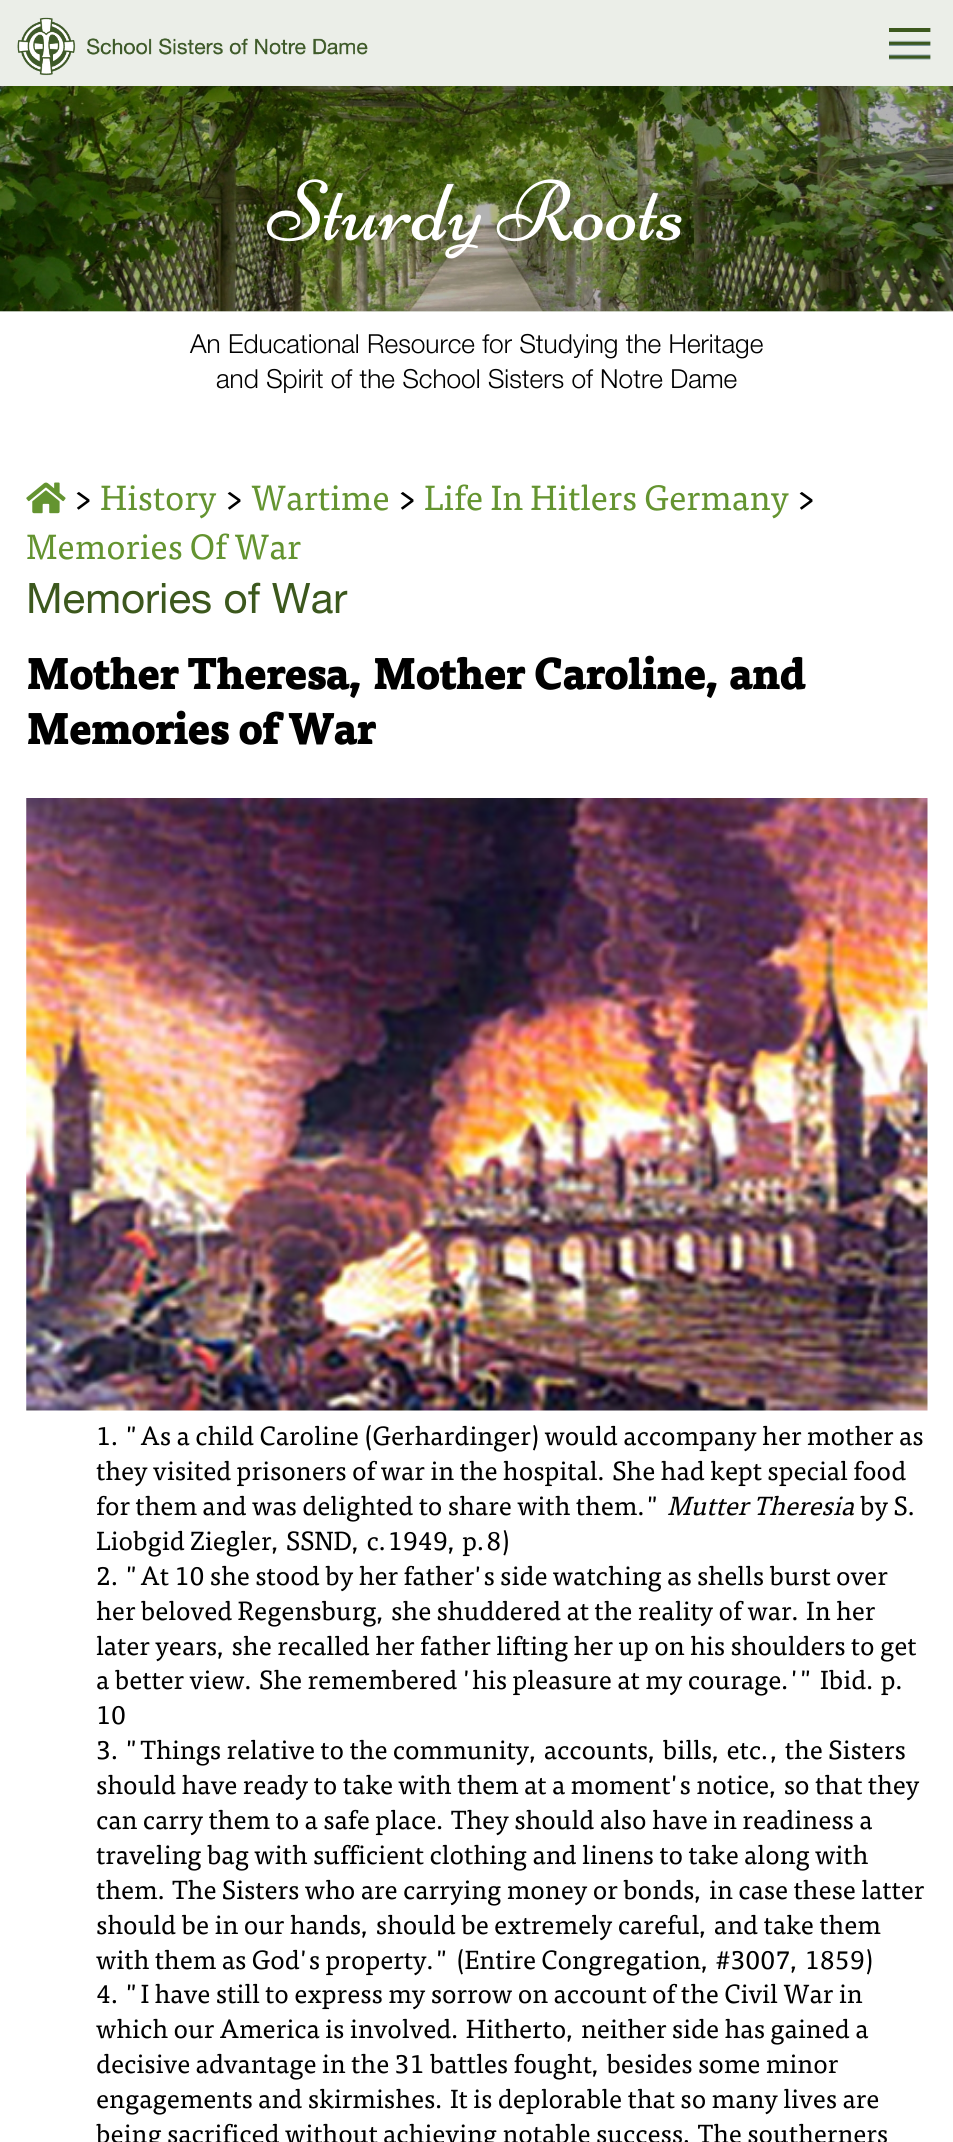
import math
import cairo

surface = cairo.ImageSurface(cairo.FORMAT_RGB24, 953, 2142)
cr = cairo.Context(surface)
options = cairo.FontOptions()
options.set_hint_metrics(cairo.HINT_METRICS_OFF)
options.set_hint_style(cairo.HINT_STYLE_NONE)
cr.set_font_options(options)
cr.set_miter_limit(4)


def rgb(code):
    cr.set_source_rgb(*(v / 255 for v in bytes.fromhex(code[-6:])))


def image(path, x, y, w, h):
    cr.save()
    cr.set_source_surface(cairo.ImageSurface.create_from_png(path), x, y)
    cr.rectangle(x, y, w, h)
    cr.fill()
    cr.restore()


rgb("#ffffff")
cr.paint()
rgb("#ebeee8")
cr.rectangle(0, 0, 953, 312)
cr.fill()
image("img/1.png", 17, 17, 351, 59)
image("img/2.png", 889, 28, 42, 32)
image("img/3.png", 0, 86, 953, 226)
image("img/4.png", 266, 179, 416, 80)
image("img/5.png", 26, 482, 40, 32)
image("img/6.png", 26, 798, 902, 613)
cr.select_font_face("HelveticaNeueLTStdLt")
cr.set_font_size(26.25)
rgb("#000000")
cr.move_to(190, 353)
cr.show_text("An Educational Resource for Studying the Heritage")
cr.move_to(216, 388)
cr.show_text("and Spirit of the School Sisters of Notre Dame")
cr.select_font_face("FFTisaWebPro")
cr.set_font_size(35)
cr.move_to(73, 510)
cr.show_text(">")
rgb("#649430")
cr.move_to(100, 510)
cr.show_text("History")
rgb("#000000")
cr.move_to(224, 510)
cr.show_text(">")
rgb("#649430")
cr.move_to(251, 510)
cr.show_text("Wartime")
rgb("#000000")
cr.move_to(397, 510)
cr.show_text(">")
rgb("#649430")
cr.move_to(424, 510)
cr.show_text("Life In Hitlers Germany")
rgb("#000000")
cr.move_to(796, 510)
cr.show_text(">")
rgb("#649430")
cr.move_to(26, 559)
cr.show_text("Memories Of War")
cr.select_font_face("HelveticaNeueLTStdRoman")
cr.set_font_size(42)
rgb("#3c581d")
cr.move_to(26, 613)
cr.show_text("Memories of War")
cr.select_font_face("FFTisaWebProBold", cairo.FONT_SLANT_NORMAL, cairo.FONT_WEIGHT_BOLD)
rgb("#000000")
cr.move_to(26, 689)
cr.show_text("Mother Theresa, Mother Caroline, and")
cr.move_to(26, 744)
cr.show_text("Memories of War")
cr.select_font_face("FFTisaWebPro")
cr.set_font_size(26.25)
for x, y, s in [
    (96, 1445, "1. \"As a child Caroline (Gerhardinger) would accompany her mother as"),
    (96, 1480, "they visited prisoners of war in the hospital. She had kept special food"),
    (96, 1515, "for them and was delighted to share with them.\""),
]:
    cr.move_to(x, y)
    cr.show_text(s)
cr.select_font_face("FFTisaWebPro", cairo.FONT_SLANT_ITALIC)
cr.move_to(667, 1515)
cr.show_text("Mutter Theresia")
cr.select_font_face("FFTisaWebPro")
for x, y, s in [
    (860, 1515, "by S."),
    (96, 1550, "Liobgid Ziegler, SSND, c.1949, p.8)"),
    (96, 1585, "2. \"At 10 she stood by her father's side watching as shells burst over"),
    (96, 1620, "her beloved Regensburg, she shuddered at the reality of war. In her"),
    (96, 1655, "later years, she recalled her father lifting her up on his shoulders to get"),
    (96, 1689, "a better view. She remembered 'his pleasure at my courage.'\" Ibid. p."),
    (96, 1724, "10"),
    (96, 1759, "3. \"Things relative to the community, accounts, bills, etc., the Sisters"),
    (96, 1794, "should have ready to take with them at a moment's notice, so that they"),
    (96, 1829, "can carry them to a safe place. They should also have in readiness a"),
    (96, 1864, "traveling bag with sufficient clothing and linens to take along with"),
    (96, 1899, "them. The Sisters who are carrying money or bonds, in case these latter"),
    (96, 1934, "should be in our hands, should be extremely careful, and take them"),
    (96, 1969, "with them as God's property.\" (Entire Congregation, #3007, 1859)"),
    (96, 2003, "4. \"I have still to express my sorrow on account of the Civil War in"),
    (96, 2038, "which our America is involved. Hitherto, neither side has gained a"),
    (96, 2073, "decisive advantage in the 31 battles fought, besides some minor"),
    (96, 2108, "engagements and skirmishes. It is deplorable that so many lives are"),
    (96, 2143, "being sacrificed without achieving notable success. The southerners"),
]:
    cr.move_to(x, y)
    cr.show_text(s)
surface.write_to_png("page.png")
